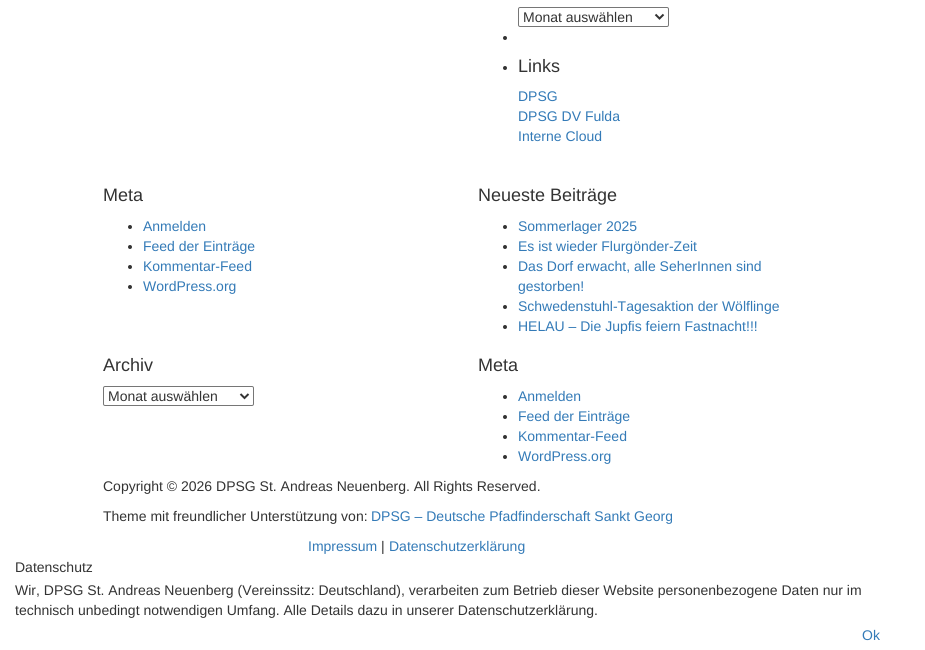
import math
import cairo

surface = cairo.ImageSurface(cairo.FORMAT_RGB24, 925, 650)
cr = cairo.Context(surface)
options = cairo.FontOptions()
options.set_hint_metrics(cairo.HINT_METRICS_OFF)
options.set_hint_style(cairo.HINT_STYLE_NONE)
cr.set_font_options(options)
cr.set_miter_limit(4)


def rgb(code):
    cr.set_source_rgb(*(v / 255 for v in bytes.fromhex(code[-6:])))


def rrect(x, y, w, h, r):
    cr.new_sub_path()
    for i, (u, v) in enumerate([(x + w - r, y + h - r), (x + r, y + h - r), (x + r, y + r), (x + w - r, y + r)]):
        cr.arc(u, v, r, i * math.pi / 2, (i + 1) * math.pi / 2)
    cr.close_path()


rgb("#ffffff")
cr.paint()
rrect(518.5, 7.5, 150, 19, 1.5)
rgb("#767676")
cr.set_line_width(1)
cr.stroke()
cr.new_path()
cr.move_to(655.5, 14.5)
cr.line_to(659.5, 18.5)
cr.line_to(663.5, 14.5)
rgb("#333333")
cr.set_line_width(2)
cr.stroke()
cr.arc(505, 38, 2, 0, 2 * math.pi)
cr.fill()
cr.arc(505, 68, 2, 0, 2 * math.pi)
cr.fill()
cr.arc(130, 227, 2, 0, 2 * math.pi)
cr.fill()
cr.arc(130, 247, 2, 0, 2 * math.pi)
cr.fill()
cr.arc(130, 267, 2, 0, 2 * math.pi)
cr.fill()
cr.arc(130, 287, 2, 0, 2 * math.pi)
cr.fill()
cr.arc(505, 227, 2, 0, 2 * math.pi)
cr.fill()
cr.arc(505, 247, 2, 0, 2 * math.pi)
cr.fill()
cr.arc(505, 267, 2, 0, 2 * math.pi)
cr.fill()
cr.arc(505, 307, 2, 0, 2 * math.pi)
cr.fill()
cr.arc(505, 327, 2, 0, 2 * math.pi)
cr.fill()
rrect(103.5, 386.5, 150, 19, 1.5)
rgb("#767676")
cr.set_line_width(1)
cr.stroke()
cr.new_path()
cr.move_to(240.5, 394)
cr.line_to(244.5, 398)
cr.line_to(248.5, 394)
rgb("#333333")
cr.set_line_width(2)
cr.stroke()
cr.arc(505, 397, 2, 0, 2 * math.pi)
cr.fill()
cr.arc(505, 417, 2, 0, 2 * math.pi)
cr.fill()
cr.arc(505, 437, 2, 0, 2 * math.pi)
cr.fill()
cr.arc(505, 457, 2, 0, 2 * math.pi)
cr.fill()
cr.select_font_face("Liberation Sans")
cr.set_font_size(14)
cr.move_to(523, 22)
cr.show_text("Monat auswählen")
cr.set_font_size(18)
cr.move_to(518, 72)
cr.show_text("Links")
cr.set_font_size(14)
rgb("#337ab7")
for x, y, s in [
    (518, 101, "DPSG"),
    (518, 121, "DPSG DV Fulda"),
    (518, 141, "Interne Cloud"),
]:
    cr.move_to(x, y)
    cr.show_text(s)
cr.set_font_size(18)
rgb("#333333")
cr.move_to(103, 201)
cr.show_text("Meta")
cr.set_font_size(14)
rgb("#337ab7")
for x, y, s in [
    (143, 231, "Anmelden"),
    (143, 251, "Feed der Einträge"),
    (143, 271, "Kommentar-Feed"),
    (143, 291, "WordPress.org"),
]:
    cr.move_to(x, y)
    cr.show_text(s)
cr.set_font_size(18)
rgb("#333333")
cr.move_to(478, 201)
cr.show_text("Neueste Beiträge")
cr.set_font_size(14)
rgb("#337ab7")
for x, y, s in [
    (518, 231, "Sommerlager 2025"),
    (518, 251, "Es ist wieder Flurgönder-Zeit"),
    (518, 271, "Das Dorf erwacht, alle SeherInnen sind"),
    (518, 291, "gestorben!"),
    (518, 311, "Schwedenstuhl-Tagesaktion der Wölflinge"),
    (518, 331, "HELAU – Die Jupfis feiern Fastnacht!!!"),
]:
    cr.move_to(x, y)
    cr.show_text(s)
cr.set_font_size(18)
rgb("#333333")
cr.move_to(103, 371)
cr.show_text("Archiv")
cr.set_font_size(14)
cr.move_to(108, 401)
cr.show_text("Monat auswählen")
cr.set_font_size(18)
cr.move_to(478, 371)
cr.show_text("Meta")
cr.set_font_size(14)
rgb("#337ab7")
for x, y, s in [
    (518, 401, "Anmelden"),
    (518, 421, "Feed der Einträge"),
    (518, 441, "Kommentar-Feed"),
    (518, 461, "WordPress.org"),
]:
    cr.move_to(x, y)
    cr.show_text(s)
rgb("#333333")
cr.move_to(103, 491)
cr.show_text("Copyright © 2026 DPSG St. Andreas Neuenberg. All Rights Reserved.")
cr.move_to(103, 521)
cr.show_text("Theme mit freundlicher Unterstützung von:")
rgb("#337ab7")
cr.move_to(371, 521)
cr.show_text("DPSG – Deutsche Pfadfinderschaft Sankt Georg")
cr.move_to(308, 551)
cr.show_text("Impressum")
rgb("#333333")
cr.move_to(381, 551)
cr.show_text("|")
rgb("#337ab7")
cr.move_to(389, 551)
cr.show_text("Datenschutzerklärung")
rgb("#333333")
for x, y, s in [
    (15, 572, "Datenschutz"),
    (15, 595, "Wir, DPSG St. Andreas Neuenberg (Vereinssitz: Deutschland), verarbeiten zum Betrieb dieser Website personenbezogene Daten nur im"),
    (15, 615, "technisch unbedingt notwendigen Umfang. Alle Details dazu in unserer Datenschutzerklärung."),
]:
    cr.move_to(x, y)
    cr.show_text(s)
rgb("#337ab7")
cr.move_to(862, 640)
cr.show_text("Ok")
surface.write_to_png("page.png")
